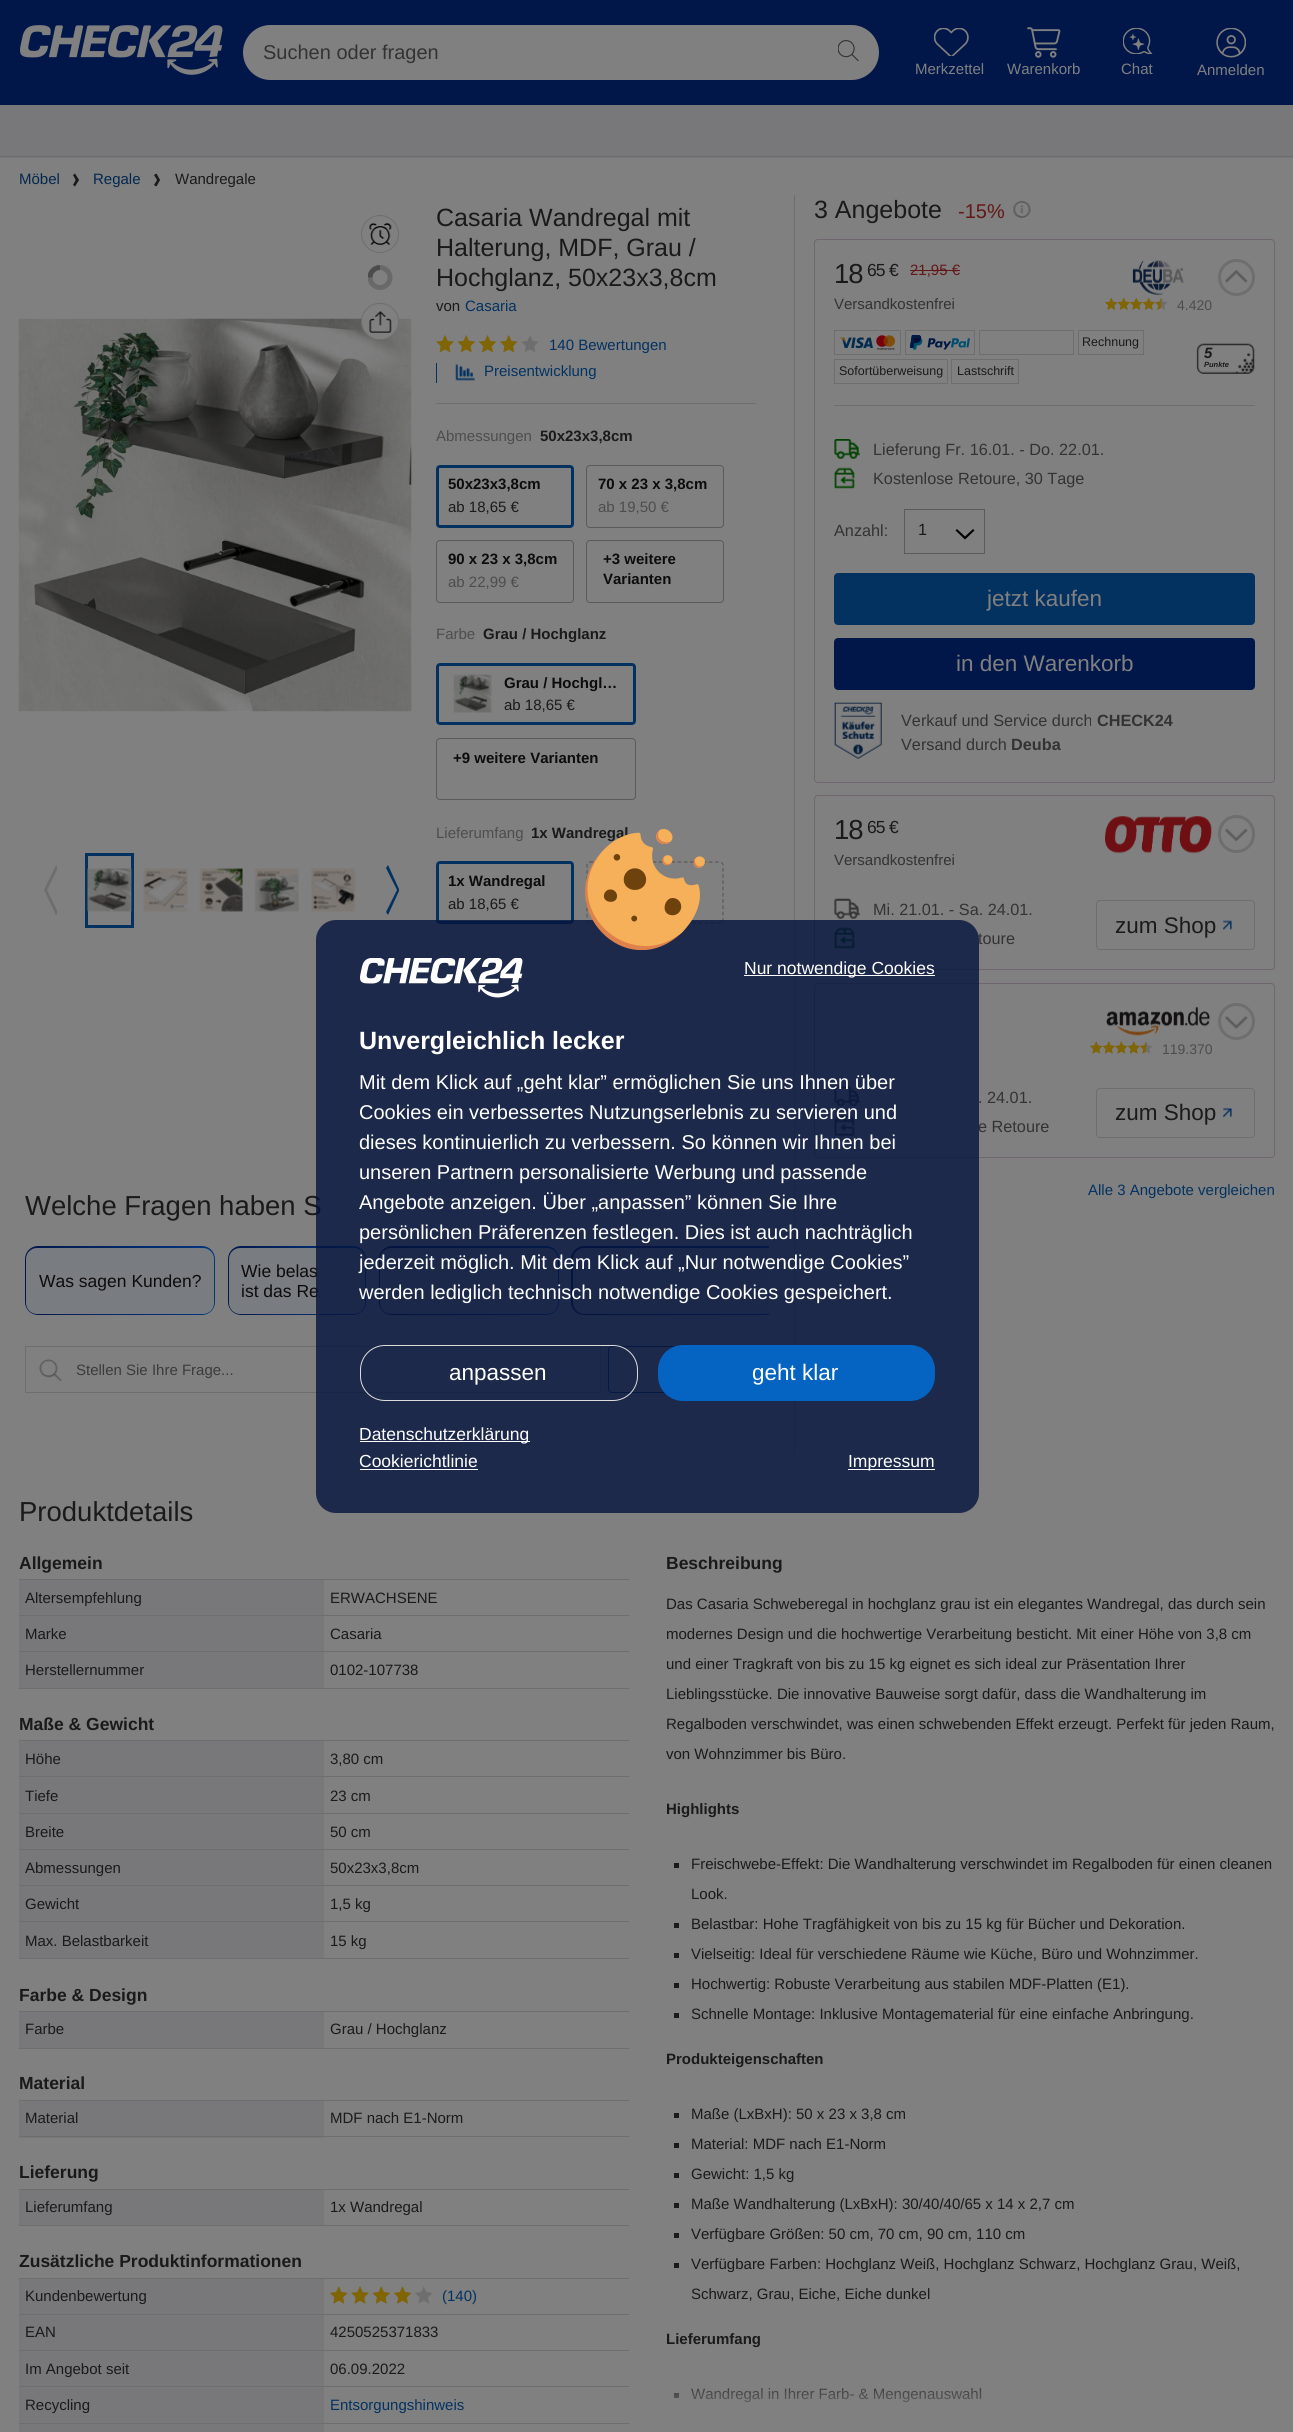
import math
import cairo

surface = cairo.ImageSurface(cairo.FORMAT_RGB24, 1293, 2432)
cr = cairo.Context(surface)
options = cairo.FontOptions()
options.set_hint_metrics(cairo.HINT_METRICS_OFF)
options.set_hint_style(cairo.HINT_STYLE_NONE)
cr.set_font_options(options)
cr.set_miter_limit(4)


def rgb(code):
    cr.set_source_rgb(*(v / 255 for v in bytes.fromhex(code[-6:])))


def tracked(x, y, s, letter, word):
    cr.move_to(x, y)
    for ch in s:
        cr.show_text(ch)
        cr.rel_move_to(letter + word * (ch == ' '), 0)


def rrect(x, y, w, h, r):
    cr.new_sub_path()
    for i, (u, v) in enumerate([(x + w - r, y + h - r), (x + r, y + h - r), (x + r, y + r), (x + w - r, y + r)]):
        cr.arc(u, v, r, i * math.pi / 2, (i + 1) * math.pi / 2)
    cr.close_path()


def image(path, x, y, w, h):
    cr.save()
    cr.set_source_surface(cairo.ImageSurface.create_from_png(path), x, y)
    cr.rectangle(x, y, w, h)
    cr.fill()
    cr.restore()


rgb("#01174a")
cr.paint()
image("img/1.png", 20, 25, 203, 50)
rgb("#808080")
rrect(243, 25, 636, 55, 27.5)
cr.fill()
image("img/2.png", 838, 40, 21, 21)
image("img/3.png", 934, 28, 35, 28)
image("img/4.png", 1027, 27, 34, 31)
image("img/5.png", 1123, 28, 30, 26)
image("img/6.png", 1216, 28, 30, 30)
for x, y, w, h, color in [
    (0, 105, 1293, 53, "#78787a"),
    (0, 156, 1293, 1, "#6e6e6e"),
    (0, 158, 1293, 2274, "#808080"),
]:
    rgb(color)
    cr.rectangle(x, y, w, h)
    cr.fill()
rgb("#1a1a1a")
cr.new_path()
cr.move_to(75, 173.5)
cr.line_to(79, 180)
cr.line_to(76.5, 181.5)
cr.line_to(73, 175)
cr.close_path()
cr.fill()
cr.new_path()
cr.move_to(73, 185)
cr.line_to(76.5, 178.5)
cr.line_to(79, 180)
cr.line_to(75, 186.5)
cr.close_path()
cr.fill()
cr.new_path()
cr.move_to(156.5, 173.5)
cr.line_to(160, 180)
cr.line_to(158, 181.5)
cr.line_to(154, 175)
cr.close_path()
cr.fill()
cr.new_path()
cr.move_to(154, 185)
cr.line_to(158, 178.5)
cr.line_to(160, 180)
cr.line_to(156.5, 186.5)
cr.close_path()
cr.fill()
image("img/9.png", 18, 318, 394, 394)
rgb("#6e6e6e")
cr.new_path()
cr.move_to(47, 890)
cr.line_to(57, 910)
cr.line_to(57, 914)
cr.line_to(56, 915)
cr.line_to(44, 890)
cr.line_to(56, 865)
cr.line_to(57, 866)
cr.line_to(57, 870)
cr.close_path()
cr.fill()
cr.rectangle(86.5, 854.5, 46, 72)
rgb("#033261")
cr.set_line_width(3)
cr.stroke()
image("img/10.png", 87, 868, 45, 44)
image("img/11.png", 143, 868, 45, 44)
image("img/12.png", 199, 868, 44, 44)
image("img/13.png", 254, 868, 45, 44)
image("img/14.png", 311, 868, 45, 44)
cr.new_path()
cr.move_to(397, 890)
cr.line_to(386, 868)
cr.line_to(388, 865)
cr.line_to(399, 889)
cr.line_to(399, 891)
cr.line_to(388, 915)
cr.line_to(386, 912)
cr.close_path()
cr.fill()
cr.arc(380, 234, 18.5, 0, 2 * math.pi)
rgb("#6e6e6e")
cr.set_line_width(1)
cr.stroke()
image("img/15.png", 369, 223, 23, 22)
image("img/16.png", 368, 265, 25, 25)
rgb("#808080")
rrect(361.5, 303.5, 37, 36, 18)
cr.fill_preserve()
rgb("#6e6e6e")
cr.stroke()
image("img/17.png", 369, 311, 23, 22)
cr.rectangle(436, 403, 320, 1)
cr.fill()
image("img/18.png", 436, 335, 103, 18)
image("img/19.png", 436, 335, 82, 18)
rgb("#033261")
cr.rectangle(436, 363, 1, 20)
cr.fill()
image("img/20.png", 455, 364, 20, 17)
rrect(437.5, 466.5, 135, 60, 2.5)
cr.set_line_width(3)
cr.stroke()
rrect(586.5, 465.5, 137, 62, 3.5)
rgb("#5a5a5a")
cr.set_line_width(1)
cr.stroke()
rrect(436.5, 540.5, 137, 62, 3.5)
cr.stroke()
rrect(586.5, 540.5, 137, 62, 3.5)
cr.stroke()
rrect(437.5, 664.5, 197, 59, 2.5)
rgb("#033261")
cr.set_line_width(3)
cr.stroke()
image("img/21.png", 453, 674, 39, 39)
rrect(436.5, 738.5, 199, 61, 3.5)
rgb("#5a5a5a")
cr.set_line_width(1)
cr.stroke()
rrect(437.5, 862.5, 135, 60, 2.5)
rgb("#033261")
cr.set_line_width(3)
cr.stroke()
cr.new_path()
cr.move_to(590, 862)
cr.line_to(720, 862)
cr.curve_to(721.5, 862, 723, 863.5, 723, 865)
cr.line_to(723, 920)
cr.curve_to(723, 921.5, 721.5, 923, 720, 923)
cr.line_to(590, 923)
cr.curve_to(588.5, 923, 587, 921.5, 587, 920)
cr.line_to(587, 865)
cr.curve_to(587, 863.5, 588.5, 862, 590, 862)
cr.close_path()
rgb("#5a5a5a")
cr.set_line_width(1.2)
cr.set_dash([3.75, 2.5])
cr.stroke()
gradient = cairo.LinearGradient(25, 1281, 215, 1281)
gradient.add_color_stop_rgba(0, 0.004, 0.09, 0.29, 1)
gradient.add_color_stop_rgba(1, 0, 0.212, 0.502, 1)
cr.set_source(gradient)
rrect(25, 1246, 190, 69, 13)
cr.fill()
rgb("#797c80")
rrect(26, 1248, 188, 66, 11)
cr.fill()
gradient = cairo.LinearGradient(228, 1281, 366, 1281)
gradient.add_color_stop_rgba(0, 0.004, 0.09, 0.29, 1)
gradient.add_color_stop_rgba(1, 0, 0.212, 0.502, 1)
cr.set_source(gradient)
rrect(228, 1246, 138, 69, 13)
cr.fill()
rgb("#797c80")
rrect(229, 1248, 136, 66, 11)
cr.fill()
gradient = cairo.LinearGradient(379, 1281, 559, 1281)
gradient.add_color_stop_rgba(0, 0.004, 0.09, 0.29, 1)
gradient.add_color_stop_rgba(1, 0, 0.212, 0.502, 1)
cr.set_source(gradient)
rrect(379, 1246, 180, 69, 13)
cr.fill()
rgb("#797c80")
rrect(380, 1248, 178, 66, 11)
cr.fill()
gradient = cairo.LinearGradient(571, 1281, 811, 1281)
gradient.add_color_stop_rgba(0, 0.004, 0.09, 0.29, 1)
gradient.add_color_stop_rgba(1, 0, 0.212, 0.502, 1)
cr.set_source(gradient)
cr.new_path()
cr.move_to(584, 1246)
cr.line_to(769, 1246)
cr.line_to(769, 1315)
cr.line_to(584, 1315)
cr.curve_to(577, 1315, 571, 1309, 571, 1302)
cr.line_to(571, 1259)
cr.curve_to(571, 1252, 577, 1246, 584, 1246)
cr.close_path()
cr.fill()
rgb("#797c80")
cr.new_path()
cr.move_to(584, 1248)
cr.line_to(769, 1248)
cr.line_to(769, 1314)
cr.line_to(584, 1314)
cr.curve_to(578, 1314, 573, 1309, 573, 1303)
cr.line_to(573, 1259)
cr.curve_to(573, 1253, 578, 1248, 584, 1248)
cr.close_path()
cr.fill()
cr.rectangle(25.5, 1346.5, 575, 46)
rgb("#6e6e6e")
cr.set_line_width(1)
cr.set_dash([])
cr.stroke()
image("img/22.png", 39, 1359, 23, 23)
rrect(608.5, 1346.5, 135, 46, 3.5)
rgb("#033261")
cr.stroke()
rgb("#6e6e6e")
cr.rectangle(794, 195, 1, 1258)
cr.fill()
image("img/23.png", 1013, 201, 18, 17)
rrect(814.5, 239.5, 460, 543, 3.5)
rgb("#6f666f")
cr.stroke()
rgb("#6e6e6e")
cr.rectangle(834, 405, 421, 1)
cr.fill()
rgb("#641717")
cr.rectangle(910, 270, 50, 1)
cr.fill()
image("img/24.png", 1132, 260, 52, 35)
image("img/25.png", 1105, 297, 63, 13)
image("img/26.png", 1105, 298, 56, 12)
cr.arc(1236.5, 277.5, 17, 0, 2 * math.pi)
rgb("#6e6e6e")
cr.set_line_width(3)
cr.stroke()
image("img/27.png", 1225, 269, 22, 14)
cr.rectangle(834.5, 330.5, 66, 24)
cr.set_line_width(1)
cr.stroke()
image("img/28.png", 839, 335, 56, 15)
cr.rectangle(905.5, 330.5, 69, 24)
cr.stroke()
image("img/29.png", 910, 335, 60, 15)
cr.rectangle(979.5, 330.5, 94, 24)
cr.stroke()
cr.rectangle(1078.5, 330.5, 65, 24)
cr.stroke()
cr.rectangle(834.5, 359.5, 113, 24)
cr.stroke()
cr.rectangle(951.5, 359.5, 67, 24)
cr.stroke()
image("img/30.png", 1196, 343, 59, 31)
image("img/31.png", 834, 439, 26, 20)
image("img/32.png", 834, 467, 21, 22)
rgb("#000000")
cr.new_path()
cr.move_to(965, 536.5)
cr.line_to(957, 529)
cr.line_to(955.5, 530.5)
cr.line_to(965, 539.5)
cr.line_to(974.5, 530.5)
cr.line_to(973, 529)
cr.close_path()
cr.fill()
cr.rectangle(904.5, 509.5, 80, 44)
rgb("#5a5a5a")
cr.stroke()
rgb("#033261")
rrect(835.5, 574.5, 418, 49, 2.5)
cr.fill_preserve()
cr.set_line_width(3)
cr.stroke()
rgb("#01174a")
rrect(835.5, 639.5, 418, 49, 2.5)
cr.fill_preserve()
cr.stroke()
image("img/33.png", 834, 702, 48, 57)
rrect(814.5, 795.5, 460, 174, 3.5)
rgb("#6f666f")
cr.set_line_width(1)
cr.stroke()
image("img/34.png", 1105, 816, 107, 38)
rrect(1219.5, 816.5, 34, 35, 17)
rgb("#6e6e6e")
cr.set_line_width(3)
cr.stroke()
image("img/35.png", 1225, 828, 23, 14)
image("img/36.png", 834, 898, 26, 21)
image("img/32.png", 834, 927, 21, 22)
rrect(1096.5, 900.5, 158, 49, 3.5)
cr.set_line_width(1)
cr.stroke()
image("img/37.png", 1223, 920, 9, 10)
rrect(814.5, 983.5, 460, 174, 3.5)
rgb("#6f666f")
cr.stroke()
cr.arc(1236.5, 1021.5, 17, 0, 2 * math.pi)
rgb("#6e6e6e")
cr.set_line_width(3)
cr.stroke()
image("img/38.png", 1225, 1016, 23, 13)
image("img/39.png", 1106, 1006, 104, 30)
image("img/40.png", 1090, 1041, 63, 13)
image("img/41.png", 1090, 1041, 56, 13)
image("img/42.png", 834, 1085, 26, 22)
image("img/43.png", 834, 1115, 21, 21)
rrect(1096.5, 1088.5, 158, 49, 3.5)
cr.set_line_width(1)
cr.stroke()
image("img/44.png", 1223, 1108, 9, 10)
for x, y, w, h, color in [
    (19, 1580, 305, 35, "#78787a"),
    (19, 1579, 610, 1, "#6e6e6e"),
    (19, 1616, 305, 35, "#78787a"),
    (19, 1615, 610, 1, "#6e6e6e"),
    (19, 1652, 305, 36, "#78787a"),
    (19, 1651, 610, 1, "#6e6e6e"),
    (19, 1688, 610, 1, "#6e6e6e"),
    (19, 1741, 305, 35, "#78787a"),
    (19, 1740, 610, 1, "#6e6e6e"),
    (19, 1777, 305, 36, "#78787a"),
    (19, 1776, 610, 1, "#6e6e6e"),
    (19, 1814, 305, 35, "#78787a"),
    (19, 1813, 610, 1, "#6e6e6e"),
    (19, 1850, 305, 35, "#78787a"),
    (19, 1849, 610, 1, "#6e6e6e"),
    (19, 1886, 305, 35, "#78787a"),
    (19, 1885, 610, 1, "#6e6e6e"),
    (19, 1922, 305, 36, "#78787a"),
    (19, 1921, 610, 1, "#6e6e6e"),
    (19, 1958, 610, 1, "#6e6e6e"),
    (19, 2012, 305, 36, "#78787a"),
    (19, 2011, 610, 1, "#6e6e6e"),
    (19, 2048, 610, 1, "#6e6e6e"),
    (19, 2101, 305, 37, "#78787a"),
    (19, 2100, 610, 1, "#6e6e6e"),
    (19, 2136, 610, 1, "#6e6e6e"),
    (19, 2190, 305, 35, "#78787a"),
    (19, 2189, 610, 1, "#6e6e6e"),
    (19, 2225, 610, 1, "#6e6e6e"),
    (19, 2279, 305, 35, "#78787a"),
    (19, 2278, 610, 1, "#6e6e6e"),
]:
    rgb(color)
    cr.rectangle(x, y, w, h)
    cr.fill()
image("img/45.png", 330, 2286, 102, 18)
image("img/46.png", 330, 2286, 81, 18)
for x, y, w, h, color in [
    (19, 2315, 305, 35, "#78787a"),
    (19, 2314, 610, 1, "#6e6e6e"),
    (19, 2351, 305, 35, "#78787a"),
    (19, 2350, 610, 1, "#6e6e6e"),
    (19, 2387, 305, 36, "#78787a"),
    (19, 2386, 610, 1, "#6e6e6e"),
    (19, 2424, 305, 8, "#78787a"),
    (19, 2423, 610, 1, "#6e6e6e"),
    (674, 1863, 5, 5, "#1a1a1a"),
    (674, 1923, 5, 5, "#1a1a1a"),
    (674, 1953, 5, 5, "#1a1a1a"),
    (674, 1983, 5, 5, "#1a1a1a"),
    (674, 2013, 5, 5, "#1a1a1a"),
    (674, 2113, 5, 5, "#1a1a1a"),
    (674, 2143, 5, 5, "#1a1a1a"),
    (674, 2173, 5, 5, "#1a1a1a"),
    (674, 2203, 5, 5, "#1a1a1a"),
    (674, 2233, 5, 5, "#1a1a1a"),
    (674, 2263, 5, 5, "#1a1a1a"),
    (674, 2393, 5, 5, "#1a1a1a"),
]:
    rgb(color)
    cr.rectangle(x, y, w, h)
    cr.fill()
cr.select_font_face("Liberation Sans")
cr.set_font_size(20)
rgb("#333333")
cr.move_to(263, 59)
cr.show_text("Suchen oder fragen")
cr.set_font_size(15)
rgb("#808080")
for x, y, s in [
    (915, 74, "Merkzettel"),
    (1007, 74, "Warenkorb"),
    (1121, 74, "Chat"),
    (1197, 75, "Anmelden"),
]:
    cr.move_to(x, y)
    cr.show_text(s)
rgb("#03274e")
cr.move_to(19, 184)
cr.show_text("Möbel")
cr.move_to(93, 184)
cr.show_text("Regale")
rgb("#1a1a1a")
cr.move_to(175, 184)
cr.show_text("Wandregale")
cr.set_font_size(25)
for x, y, s in [
    (436, 226, "Casaria Wandregal mit"),
    (436, 256, "Halterung, MDF, Grau /"),
    (436, 286, "Hochglanz, 50x23x3,8cm"),
]:
    cr.move_to(x, y)
    cr.show_text(s)
cr.set_font_size(15)
cr.move_to(436, 311)
cr.show_text("von")
rgb("#033261")
for x, y, s in [
    (465, 311, "Casaria"),
    (549, 350, "140 Bewertungen"),
    (484, 376, "Preisentwicklung"),
]:
    cr.move_to(x, y)
    cr.show_text(s)
rgb("#4d4d4d")
cr.move_to(436, 441)
cr.show_text("Abmessungen")
cr.select_font_face("Liberation Sans", cairo.FONT_SLANT_NORMAL, cairo.FONT_WEIGHT_BOLD)
rgb("#1a1a1a")
cr.move_to(540, 441)
cr.show_text("50x23x3,8cm")
rgb("#0c0c0c")
cr.move_to(448, 489)
cr.show_text("50x23x3,8cm")
cr.select_font_face("Liberation Sans")
rgb("#1a1a1a")
cr.move_to(448, 512)
cr.show_text("ab 18,65 €")
cr.select_font_face("Liberation Sans", cairo.FONT_SLANT_NORMAL, cairo.FONT_WEIGHT_BOLD)
rgb("#0c0c0c")
cr.move_to(598, 489)
cr.show_text("70 x 23 x 3,8cm")
cr.select_font_face("Liberation Sans")
rgb("#4d4d4d")
cr.move_to(598, 512)
cr.show_text("ab 19,50 €")
cr.select_font_face("Liberation Sans", cairo.FONT_SLANT_NORMAL, cairo.FONT_WEIGHT_BOLD)
rgb("#0c0c0c")
cr.move_to(448, 564)
cr.show_text("90 x 23 x 3,8cm")
cr.select_font_face("Liberation Sans")
rgb("#4d4d4d")
cr.move_to(448, 587)
cr.show_text("ab 22,99 €")
cr.select_font_face("Liberation Sans", cairo.FONT_SLANT_NORMAL, cairo.FONT_WEIGHT_BOLD)
rgb("#0c0c0c")
cr.move_to(603, 564)
cr.show_text("+3 weitere")
cr.move_to(603, 584)
cr.show_text("Varianten")
cr.select_font_face("Liberation Sans")
rgb("#4d4d4d")
cr.move_to(436, 639)
cr.show_text("Farbe")
cr.select_font_face("Liberation Sans", cairo.FONT_SLANT_NORMAL, cairo.FONT_WEIGHT_BOLD)
rgb("#1a1a1a")
cr.move_to(483, 639)
cr.show_text("Grau / Hochglanz")
rgb("#0c0c0c")
cr.move_to(504, 688)
cr.show_text("Grau / Hochgl…")
cr.select_font_face("Liberation Sans")
rgb("#1a1a1a")
cr.move_to(504, 710)
cr.show_text("ab 18,65 €")
cr.select_font_face("Liberation Sans", cairo.FONT_SLANT_NORMAL, cairo.FONT_WEIGHT_BOLD)
rgb("#0c0c0c")
cr.move_to(453, 763)
cr.show_text("+9 weitere Varianten")
cr.select_font_face("Liberation Sans")
rgb("#4d4d4d")
cr.move_to(436, 838)
cr.show_text("Lieferumfang")
cr.select_font_face("Liberation Sans", cairo.FONT_SLANT_NORMAL, cairo.FONT_WEIGHT_BOLD)
rgb("#1a1a1a")
cr.move_to(531, 838)
cr.show_text("1x Wandregal")
rgb("#0c0c0c")
cr.move_to(448, 886)
cr.show_text("1x Wandregal")
cr.select_font_face("Liberation Sans")
rgb("#1a1a1a")
cr.move_to(448, 909)
cr.show_text("ab 18,65 €")
cr.set_font_size(27.5)
cr.move_to(25, 1215)
cr.show_text("Welche Fragen haben S")
cr.set_font_size(17.5)
rgb("#0c0c0c")
for x, y, s in [
    (39, 1287, "Was sagen Kunden?"),
    (241, 1277, "Wie belas"),
    (241, 1297, "ist das Re"),
]:
    cr.move_to(x, y)
    cr.show_text(s)
cr.set_font_size(15)
rgb("#3b3b3b")
cr.move_to(76, 1375)
cr.show_text("Stellen Sie Ihre Frage...")
cr.set_font_size(25)
rgb("#1a1a1a")
cr.move_to(814, 218)
cr.show_text("3 Angebote")
cr.set_font_size(20)
rgb("#641717")
cr.move_to(958, 218)
cr.show_text("-15%")
cr.set_font_size(27.5)
rgb("#1a1a1a")
tracked(834, 283, "18", -1, 0)
cr.set_font_size(17.5)
tracked(867, 276, "65", -1, 0)
tracked(889, 276, "€", -1, 0)
cr.set_font_size(15)
rgb("#641717")
cr.move_to(910, 275)
cr.show_text("21,95 €")
rgb("#333333")
cr.move_to(834, 309)
cr.show_text("Versandkostenfrei")
cr.set_font_size(14)
rgb("#4d4d4d")
cr.move_to(1177, 310)
cr.show_text("4.420")
cr.set_font_size(12.5)
rgb("#1a1a1a")
for x, y, s in [
    (1082, 346, "Rechnung"),
    (839, 375, "Sofortüberweisung"),
    (957, 375, "Lastschrift"),
]:
    cr.move_to(x, y)
    cr.show_text(s)
cr.select_font_face("Liberation Sans", cairo.FONT_SLANT_ITALIC, cairo.FONT_WEIGHT_BOLD)
cr.set_font_size(15)
cr.move_to(1204, 358)
cr.show_text("5")
cr.set_font_size(7.5)
cr.move_to(1204, 367)
cr.show_text("Punkte")
cr.select_font_face("Liberation Sans")
cr.set_font_size(16.25)
rgb("#333333")
for x, y, s in [
    (873, 455, "Lieferung Fr. 16.01. - Do. 22.01."),
    (873, 484, "Kostenlose Retoure, 30 Tage"),
    (834, 536, "Anzahl:"),
]:
    cr.move_to(x, y)
    cr.show_text(s)
rgb("#1a1a1a")
cr.move_to(918, 535)
cr.show_text("1")
cr.set_font_size(22.5)
rgb("#808080")
cr.move_to(987, 606)
cr.show_text("jetzt kaufen")
cr.move_to(956, 671)
cr.show_text("in den Warenkorb")
cr.set_font_size(16.25)
rgb("#333333")
cr.move_to(901, 726)
cr.show_text("Verkauf und Service durch")
cr.select_font_face("Liberation Sans", cairo.FONT_SLANT_NORMAL, cairo.FONT_WEIGHT_BOLD)
cr.move_to(1097, 726)
cr.show_text("CHECK24")
cr.select_font_face("Liberation Sans")
cr.move_to(901, 750)
cr.show_text("Versand durch")
cr.select_font_face("Liberation Sans", cairo.FONT_SLANT_NORMAL, cairo.FONT_WEIGHT_BOLD)
cr.move_to(1011, 750)
cr.show_text("Deuba")
cr.select_font_face("Liberation Sans")
cr.set_font_size(27.5)
rgb("#1a1a1a")
tracked(834, 839, "18", -1, 0)
cr.set_font_size(17.5)
tracked(867, 833, "65", -1, 0)
tracked(889, 833, "€", -1, 0)
cr.set_font_size(15)
rgb("#333333")
cr.move_to(834, 865)
cr.show_text("Versandkostenfrei")
cr.set_font_size(16.25)
cr.move_to(873, 915)
cr.show_text("Mi. 21.01. - Sa. 24.01.")
cr.move_to(978, 944)
cr.show_text("toure")
cr.set_font_size(22.5)
rgb("#1a1a1a")
cr.move_to(1115, 933)
cr.show_text("zum Shop")
cr.set_font_size(14)
rgb("#4d4d4d")
cr.move_to(1162, 1054)
cr.show_text("119.370")
cr.set_font_size(16.25)
rgb("#333333")
cr.move_to(978, 1103)
cr.show_text(". 24.01.")
cr.move_to(978, 1132)
cr.show_text("e Retoure")
cr.set_source_rgba(0.016, 0.078, 0.235, 0.8)
rrect(316, 920, 663, 593, 20)
cr.fill()
image("img/7.png", 585, 829, 120, 121)
rgb("#ffffff")
cr.rectangle(848, 1469, 87, 1)
cr.fill()
cr.set_font_size(17.5)
cr.move_to(848, 1467)
cr.show_text("Impressum")
cr.move_to(359, 1467)
cr.show_text("Cookierichtlinie")
cr.rectangle(360, 1469, 118, 1)
cr.fill()
cr.rectangle(360, 1441, 170, 1)
cr.fill()
cr.move_to(359, 1440)
cr.show_text("Datenschutzerklärung")
rgb("#0563c1")
rrect(658, 1345, 277, 56, 25)
cr.fill()
cr.set_font_size(22.5)
rgb("#ffffff")
cr.move_to(752, 1380)
cr.show_text("geht klar")
rrect(360.5, 1345.5, 277, 55, 24.5)
rgb("#dcdcdc")
cr.stroke()
rgb("#ffffff")
cr.move_to(449, 1380)
cr.show_text("anpassen")
cr.set_font_size(20)
for x, y, s in [
    (359, 1299, "werden lediglich technisch notwendige Cookies gespeichert."),
    (359, 1269, "jederzeit möglich. Mit dem Klick auf „Nur notwendige Cookies”"),
    (359, 1239, "persönlichen Präferenzen festlegen. Dies ist auch nachträglich"),
    (359, 1209, "Angebote anzeigen. Über „anpassen” können Sie Ihre"),
    (359, 1179, "unseren Partnern personalisierte Werbung und passende"),
    (359, 1149, "dieses kontinuierlich zu verbessern. So können wir Ihnen bei"),
    (359, 1119, "Cookies ein verbessertes Nutzungserlebnis zu servieren und"),
    (359, 1089, "Mit dem Klick auf „geht klar” ermöglichen Sie uns Ihnen über"),
]:
    cr.move_to(x, y)
    cr.show_text(s)
cr.select_font_face("Liberation Sans", cairo.FONT_SLANT_NORMAL, cairo.FONT_WEIGHT_BOLD)
cr.set_font_size(25)
cr.move_to(359, 1049)
cr.show_text("Unvergleichlich lecker")
cr.rectangle(744, 975, 191, 1)
cr.fill()
cr.select_font_face("Liberation Sans")
cr.set_font_size(17.5)
cr.move_to(744, 974)
cr.show_text("Nur notwendige Cookies")
image("img/8.png", 360, 958, 163, 40)
cr.set_font_size(22.5)
rgb("#1a1a1a")
cr.move_to(1115, 1120)
cr.show_text("zum Shop")
cr.set_font_size(15)
rgb("#033261")
cr.move_to(1088, 1195)
cr.show_text("Alle 3 Angebote vergleichen")
cr.set_font_size(27.5)
rgb("#1a1a1a")
cr.move_to(19, 1521)
cr.show_text("Produktdetails")
cr.select_font_face("Liberation Sans", cairo.FONT_SLANT_NORMAL, cairo.FONT_WEIGHT_BOLD)
cr.set_font_size(17.5)
cr.move_to(19, 1569)
cr.show_text("Allgemein")
cr.select_font_face("Liberation Sans")
cr.set_font_size(15)
for x, y, s in [
    (25, 1603, "Altersempfehlung"),
    (330, 1603, "ERWACHSENE"),
    (25, 1639, "Marke"),
    (330, 1639, "Casaria"),
    (25, 1675, "Herstellernummer"),
    (330, 1675, "0102-107738"),
]:
    cr.move_to(x, y)
    cr.show_text(s)
cr.select_font_face("Liberation Sans", cairo.FONT_SLANT_NORMAL, cairo.FONT_WEIGHT_BOLD)
cr.set_font_size(17.5)
cr.move_to(19, 1730)
cr.show_text("Maße & Gewicht")
cr.select_font_face("Liberation Sans")
cr.set_font_size(15)
for x, y, s in [
    (25, 1764, "Höhe"),
    (330, 1764, "3,80 cm"),
    (25, 1801, "Tiefe"),
    (330, 1801, "23 cm"),
    (25, 1837, "Breite"),
    (330, 1837, "50 cm"),
    (25, 1873, "Abmessungen"),
    (330, 1873, "50x23x3,8cm"),
    (25, 1909, "Gewicht"),
    (330, 1909, "1,5 kg"),
    (25, 1946, "Max. Belastbarkeit"),
    (330, 1946, "15 kg"),
]:
    cr.move_to(x, y)
    cr.show_text(s)
cr.select_font_face("Liberation Sans", cairo.FONT_SLANT_NORMAL, cairo.FONT_WEIGHT_BOLD)
cr.set_font_size(17.5)
cr.move_to(19, 2001)
cr.show_text("Farbe & Design")
cr.select_font_face("Liberation Sans")
cr.set_font_size(15)
cr.move_to(25, 2034)
cr.show_text("Farbe")
cr.move_to(330, 2034)
cr.show_text("Grau / Hochglanz")
cr.select_font_face("Liberation Sans", cairo.FONT_SLANT_NORMAL, cairo.FONT_WEIGHT_BOLD)
cr.set_font_size(17.5)
cr.move_to(19, 2089)
cr.show_text("Material")
cr.select_font_face("Liberation Sans")
cr.set_font_size(15)
cr.move_to(25, 2123)
cr.show_text("Material")
cr.move_to(330, 2123)
cr.show_text("MDF nach E1-Norm")
cr.select_font_face("Liberation Sans", cairo.FONT_SLANT_NORMAL, cairo.FONT_WEIGHT_BOLD)
cr.set_font_size(17.5)
cr.move_to(19, 2178)
cr.show_text("Lieferung")
cr.select_font_face("Liberation Sans")
cr.set_font_size(15)
cr.move_to(25, 2212)
cr.show_text("Lieferumfang")
cr.move_to(330, 2212)
cr.show_text("1x Wandregal")
cr.select_font_face("Liberation Sans", cairo.FONT_SLANT_NORMAL, cairo.FONT_WEIGHT_BOLD)
cr.set_font_size(17.5)
cr.move_to(19, 2267)
cr.show_text("Zusätzliche Produktinformationen")
cr.select_font_face("Liberation Sans")
cr.set_font_size(15)
cr.move_to(25, 2301)
cr.show_text("Kundenbewertung")
rgb("#033261")
cr.move_to(442, 2301)
cr.show_text("(140)")
rgb("#1a1a1a")
for x, y, s in [
    (25, 2337, "EAN"),
    (330, 2337, "4250525371833"),
    (25, 2374, "Im Angebot seit"),
    (330, 2374, "06.09.2022"),
    (25, 2410, "Recycling"),
]:
    cr.move_to(x, y)
    cr.show_text(s)
rgb("#033261")
cr.move_to(330, 2410)
cr.show_text("Entsorgungshinweis")
cr.select_font_face("Liberation Sans", cairo.FONT_SLANT_NORMAL, cairo.FONT_WEIGHT_BOLD)
cr.set_font_size(17.5)
rgb("#1a1a1a")
cr.move_to(666, 1569)
cr.show_text("Beschreibung")
cr.select_font_face("Liberation Sans")
cr.set_font_size(15)
for x, y, s in [
    (666, 1609, "Das Casaria Schweberegal in hochglanz grau ist ein elegantes Wandregal, das durch sein"),
    (666, 1639, "modernes Design und die hochwertige Verarbeitung besticht. Mit einer Höhe von 3,8 cm"),
    (666, 1669, "und einer Tragkraft von bis zu 15 kg eignet es sich ideal zur Präsentation Ihrer"),
    (666, 1699, "Lieblingsstücke. Die innovative Bauweise sorgt dafür, dass die Wandhalterung im"),
    (666, 1729, "Regalboden verschwindet, was einen schwebenden Effekt erzeugt. Perfekt für jeden Raum,"),
    (666, 1759, "von Wohnzimmer bis Büro."),
]:
    cr.move_to(x, y)
    cr.show_text(s)
cr.select_font_face("Liberation Sans", cairo.FONT_SLANT_NORMAL, cairo.FONT_WEIGHT_BOLD)
cr.move_to(666, 1814)
cr.show_text("Highlights")
cr.select_font_face("Liberation Sans")
for x, y, s in [
    (691, 1869, "Freischwebe-Effekt: Die Wandhalterung verschwindet im Regalboden für einen cleanen"),
    (691, 1899, "Look."),
    (691, 1929, "Belastbar: Hohe Tragfähigkeit von bis zu 15 kg für Bücher und Dekoration."),
    (691, 1959, "Vielseitig: Ideal für verschiedene Räume wie Küche, Büro und Wohnzimmer."),
    (691, 1989, "Hochwertig: Robuste Verarbeitung aus stabilen MDF-Platten (E1)."),
    (691, 2019, "Schnelle Montage: Inklusive Montagematerial für eine einfache Anbringung."),
]:
    cr.move_to(x, y)
    cr.show_text(s)
cr.select_font_face("Liberation Sans", cairo.FONT_SLANT_NORMAL, cairo.FONT_WEIGHT_BOLD)
cr.move_to(666, 2064)
cr.show_text("Produkteigenschaften")
cr.select_font_face("Liberation Sans")
for x, y, s in [
    (691, 2119, "Maße (LxBxH): 50 x 23 x 3,8 cm"),
    (691, 2149, "Material: MDF nach E1-Norm"),
    (691, 2179, "Gewicht: 1,5 kg"),
    (691, 2209, "Maße Wandhalterung (LxBxH): 30/40/40/65 x 14 x 2,7 cm"),
    (691, 2239, "Verfügbare Größen: 50 cm, 70 cm, 90 cm, 110 cm"),
    (691, 2269, "Verfügbare Farben: Hochglanz Weiß, Hochglanz Schwarz, Hochglanz Grau, Weiß,"),
    (691, 2299, "Schwarz, Grau, Eiche, Eiche dunkel"),
]:
    cr.move_to(x, y)
    cr.show_text(s)
cr.select_font_face("Liberation Sans", cairo.FONT_SLANT_NORMAL, cairo.FONT_WEIGHT_BOLD)
cr.move_to(666, 2344)
cr.show_text("Lieferumfang")
cr.select_font_face("Liberation Sans")
cr.move_to(691, 2399)
cr.show_text("Wandregal in Ihrer Farb- & Mengenauswahl")
gradient = cairo.LinearGradient(971, 2370, 971, 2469)
gradient.add_color_stop_rgba(0, 0.502, 0.502, 0.502, 0)
gradient.add_color_stop_rgba(0.5, 0.502, 0.502, 0.502, 1)
gradient.add_color_stop_rgba(1, 0.502, 0.502, 0.502, 1)
cr.set_source(gradient)
cr.rectangle(674, 2388, 307, 15)
cr.fill()
surface.write_to_png("page.png")
